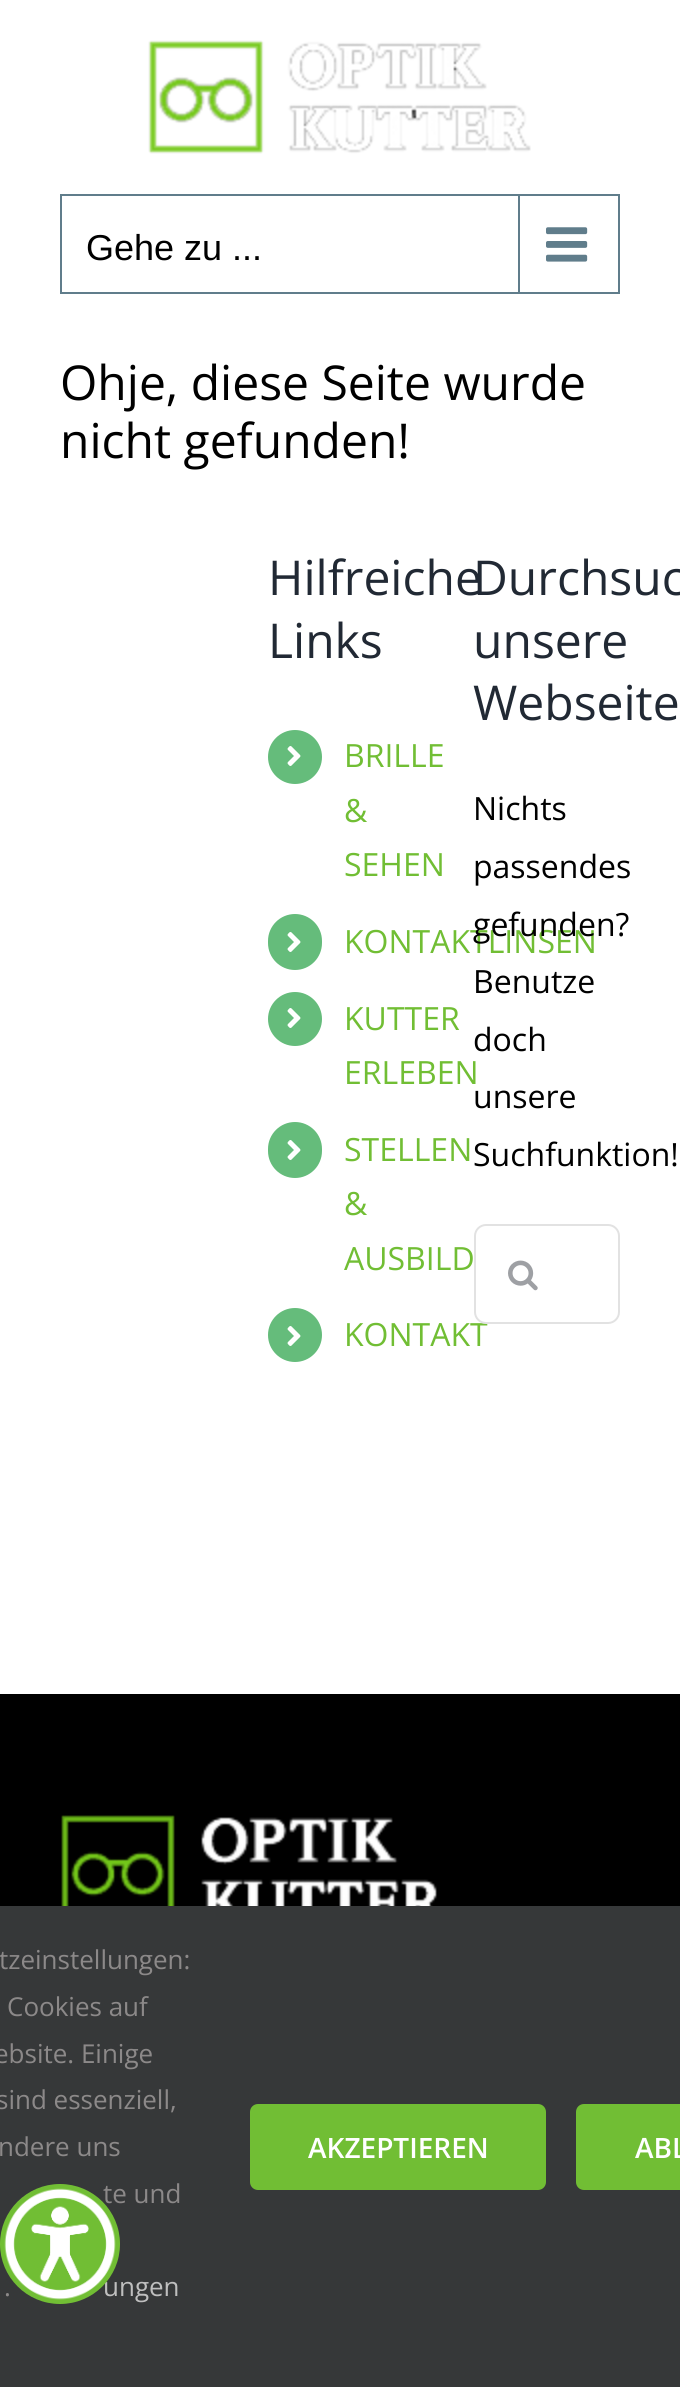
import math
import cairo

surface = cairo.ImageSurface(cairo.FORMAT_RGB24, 680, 2387)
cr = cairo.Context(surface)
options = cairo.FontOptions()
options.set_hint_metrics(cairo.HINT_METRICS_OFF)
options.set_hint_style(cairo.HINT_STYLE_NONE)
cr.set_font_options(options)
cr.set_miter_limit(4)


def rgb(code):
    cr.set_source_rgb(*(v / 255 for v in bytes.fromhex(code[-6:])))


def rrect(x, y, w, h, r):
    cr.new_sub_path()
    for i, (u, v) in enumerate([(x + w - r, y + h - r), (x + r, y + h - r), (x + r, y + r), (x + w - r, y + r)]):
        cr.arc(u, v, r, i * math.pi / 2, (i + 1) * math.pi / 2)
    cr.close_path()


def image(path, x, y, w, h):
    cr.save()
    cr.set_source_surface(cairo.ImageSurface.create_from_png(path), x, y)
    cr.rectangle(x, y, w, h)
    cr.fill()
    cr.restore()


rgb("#ffffff")
cr.paint()
image("img/1.png", 148, 40, 383, 114)
cr.rectangle(61, 195, 558, 98)
rgb("#607d8b")
cr.stroke()
cr.rectangle(518, 196, 2, 96)
cr.fill()
image("img/2.png", 546, 227, 42, 35)
rgb("#65bc7b")
cr.arc(295, 757, 27, 0, 2 * math.pi)
cr.fill()
image("img/3.png", 287, 746, 14, 20)
rrect(268, 914, 54, 56, 27)
cr.fill()
image("img/3.png", 287, 932, 14, 20)
cr.arc(295, 1019, 27, 0, 2 * math.pi)
cr.fill()
image("img/3.png", 287, 1008, 14, 20)
rrect(268, 1122, 54, 56, 27)
cr.fill()
image("img/3.png", 287, 1140, 14, 20)
cr.arc(295, 1335, 27, 0, 2 * math.pi)
cr.fill()
image("img/3.png", 287, 1326, 14, 20)
rgb("#000000")
cr.rectangle(0, 1694, 680, 212)
cr.fill()
image("img/5.png", 61, 1815, 377, 91)
rgb("#363839")
cr.rectangle(0, 1906, 680, 481)
cr.fill()
rgb("#71be34")
rrect(250, 2104, 296, 86, 8)
cr.fill()
cr.new_path()
cr.move_to(584, 2104)
cr.line_to(680, 2104)
cr.line_to(680, 2190)
cr.line_to(584, 2190)
cr.curve_to(579.5, 2190, 576, 2186.5, 576, 2182)
cr.line_to(576, 2112)
cr.curve_to(576, 2107.5, 579.5, 2104, 584, 2104)
cr.close_path()
cr.fill()
cr.select_font_face("Liberation Sans")
cr.set_font_size(36)
rgb("#000000")
cr.move_to(86, 260)
cr.show_text("Gehe zu ...")
cr.select_font_face("Open Sans")
cr.set_font_size(48)
cr.move_to(60, 400)
cr.show_text("Ohje, diese Seite wurde")
cr.move_to(60, 458)
cr.show_text("nicht gefunden!")
rgb("#212934")
cr.move_to(268, 595)
cr.show_text("Hilfreiche")
cr.move_to(268, 658)
cr.show_text("Links")
cr.set_font_size(32)
rgb("#71be34")
for x, y, s in [
    (344, 767, "BRILLE"),
    (344, 822, "&"),
    (344, 876, "SEHEN"),
    (344, 953, "KONTAKTLINSEN"),
    (344, 1030, "KUTTER"),
    (344, 1084, "ERLEBEN"),
    (344, 1161, "STELLEN"),
    (344, 1215, "&"),
    (344, 1270, "AUSBILD"),
    (344, 1346, "KONTAKT"),
]:
    cr.move_to(x, y)
    cr.show_text(s)
cr.set_font_size(48)
rgb("#212934")
for x, y, s in [
    (473, 595, "Durchsuc"),
    (473, 658, "unsere"),
    (473, 720, "Webseite"),
]:
    cr.move_to(x, y)
    cr.show_text(s)
cr.set_font_size(32)
rgb("#000000")
for x, y, s in [
    (473, 820, "Nichts"),
    (473, 878, "passendes"),
    (473, 936, "gefunden?"),
    (473, 993, "Benutze"),
    (473, 1051, "doch"),
    (473, 1108, "unsere"),
    (473, 1166, "Suchfunktion!"),
]:
    cr.move_to(x, y)
    cr.show_text(s)
rgb("#ffffff")
rrect(475, 1225, 144, 98, 11)
cr.fill_preserve()
rgb("#e2e2e2")
cr.stroke()
image("img/4.png", 508, 1260, 30, 31)
cr.set_font_size(26)
rgb("#8c8989")
for x, y, s in [
    (-1, 1969, "tzeinstellungen:"),
    (7, 2016, "Cookies auf"),
    (-6, 2063, "ebsite. Einige"),
    (-4, 2109, "sind essenziell,"),
    (-2, 2156, "ndere uns"),
    (103, 2203, "te und"),
    (4, 2296, "."),
]:
    cr.move_to(x, y)
    cr.show_text(s)
rgb("#bfbfbf")
cr.move_to(103, 2296)
cr.show_text("ungen")
cr.select_font_face("Open Sans SemiBold")
cr.set_font_size(28)
rgb("#ffffff")
cr.move_to(308, 2158)
cr.show_text("AKZEPTIEREN")
cr.move_to(635, 2158)
cr.show_text("ABL")
rgb("#71be34")
cr.new_path()
cr.arc(60, 2244, 60, 0, 2 * math.pi)
cr.fill()
image("img/6.png", 4, 2188, 112, 112)
surface.write_to_png("page.png")
